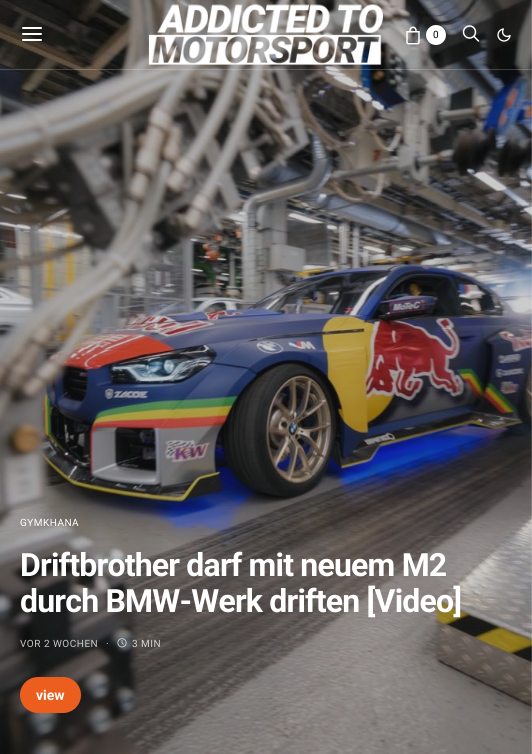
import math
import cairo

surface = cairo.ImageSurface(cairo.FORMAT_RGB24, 532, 754)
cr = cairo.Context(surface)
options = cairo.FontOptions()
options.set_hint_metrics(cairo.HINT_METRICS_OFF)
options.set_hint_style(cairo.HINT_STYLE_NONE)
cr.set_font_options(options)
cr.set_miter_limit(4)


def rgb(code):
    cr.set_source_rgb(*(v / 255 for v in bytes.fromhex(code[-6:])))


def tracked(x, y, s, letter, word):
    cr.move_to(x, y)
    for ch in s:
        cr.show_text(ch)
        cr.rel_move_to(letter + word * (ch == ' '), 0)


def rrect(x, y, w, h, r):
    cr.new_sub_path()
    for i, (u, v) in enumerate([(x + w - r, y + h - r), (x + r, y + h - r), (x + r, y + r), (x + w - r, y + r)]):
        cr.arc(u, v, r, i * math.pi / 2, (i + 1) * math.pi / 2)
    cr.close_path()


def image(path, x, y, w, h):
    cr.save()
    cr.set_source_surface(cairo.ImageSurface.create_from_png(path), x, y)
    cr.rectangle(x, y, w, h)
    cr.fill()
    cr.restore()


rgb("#ffffff")
cr.paint()
image("img/6.png", 0, 0, 532, 754)
cr.set_source_rgba(1, 1, 1, 0.2)
cr.rectangle(0, 69, 532, 1)
cr.fill()
image("img/1.png", 22, 27, 20, 14)
image("img/2.png", 149, 4, 234, 61)
image("img/3.png", 406, 26, 14, 19)
rgb("#ffffff")
cr.arc(436, 35, 10, 0, 2 * math.pi)
cr.fill()
image("img/4.png", 462, 25, 18, 17)
image("img/5.png", 497, 28, 14, 14)
image("img/7.png", 117, 638, 10, 10)
rgb("#eb5e1d")
rrect(20, 677, 61, 36, 18)
cr.fill()
cr.select_font_face("Roboto")
cr.set_font_size(10)
rgb("#000000")
tracked(433, 38, "0", 0.5, 0)
rgb("#ffffff")
tracked(20, 526, "GYMKHANA", 0.5, 0)
cr.select_font_face("Roboto", cairo.FONT_SLANT_NORMAL, cairo.FONT_WEIGHT_BOLD)
cr.set_font_size(32)
tracked(20, 576, "Driftbrother darf mit neuem M2", -0.8, 0)
tracked(20, 612, "durch BMW-Werk driften [Video]", -0.8, 0)
cr.select_font_face("Roboto")
cr.set_font_size(10)
rgb("#c5c6c6")
tracked(20, 647, "VOR 2 WOCHEN", 0.5, 0)
tracked(106, 647, "·", 0.5, 0)
rgb("#d3d2d1")
tracked(132, 647, "3 MIN", 0.5, 0)
cr.select_font_face("Roboto", cairo.FONT_SLANT_NORMAL, cairo.FONT_WEIGHT_BOLD)
cr.set_font_size(14)
rgb("#ffffff")
cr.move_to(36, 700)
cr.show_text("view")
surface.write_to_png("page.png")
